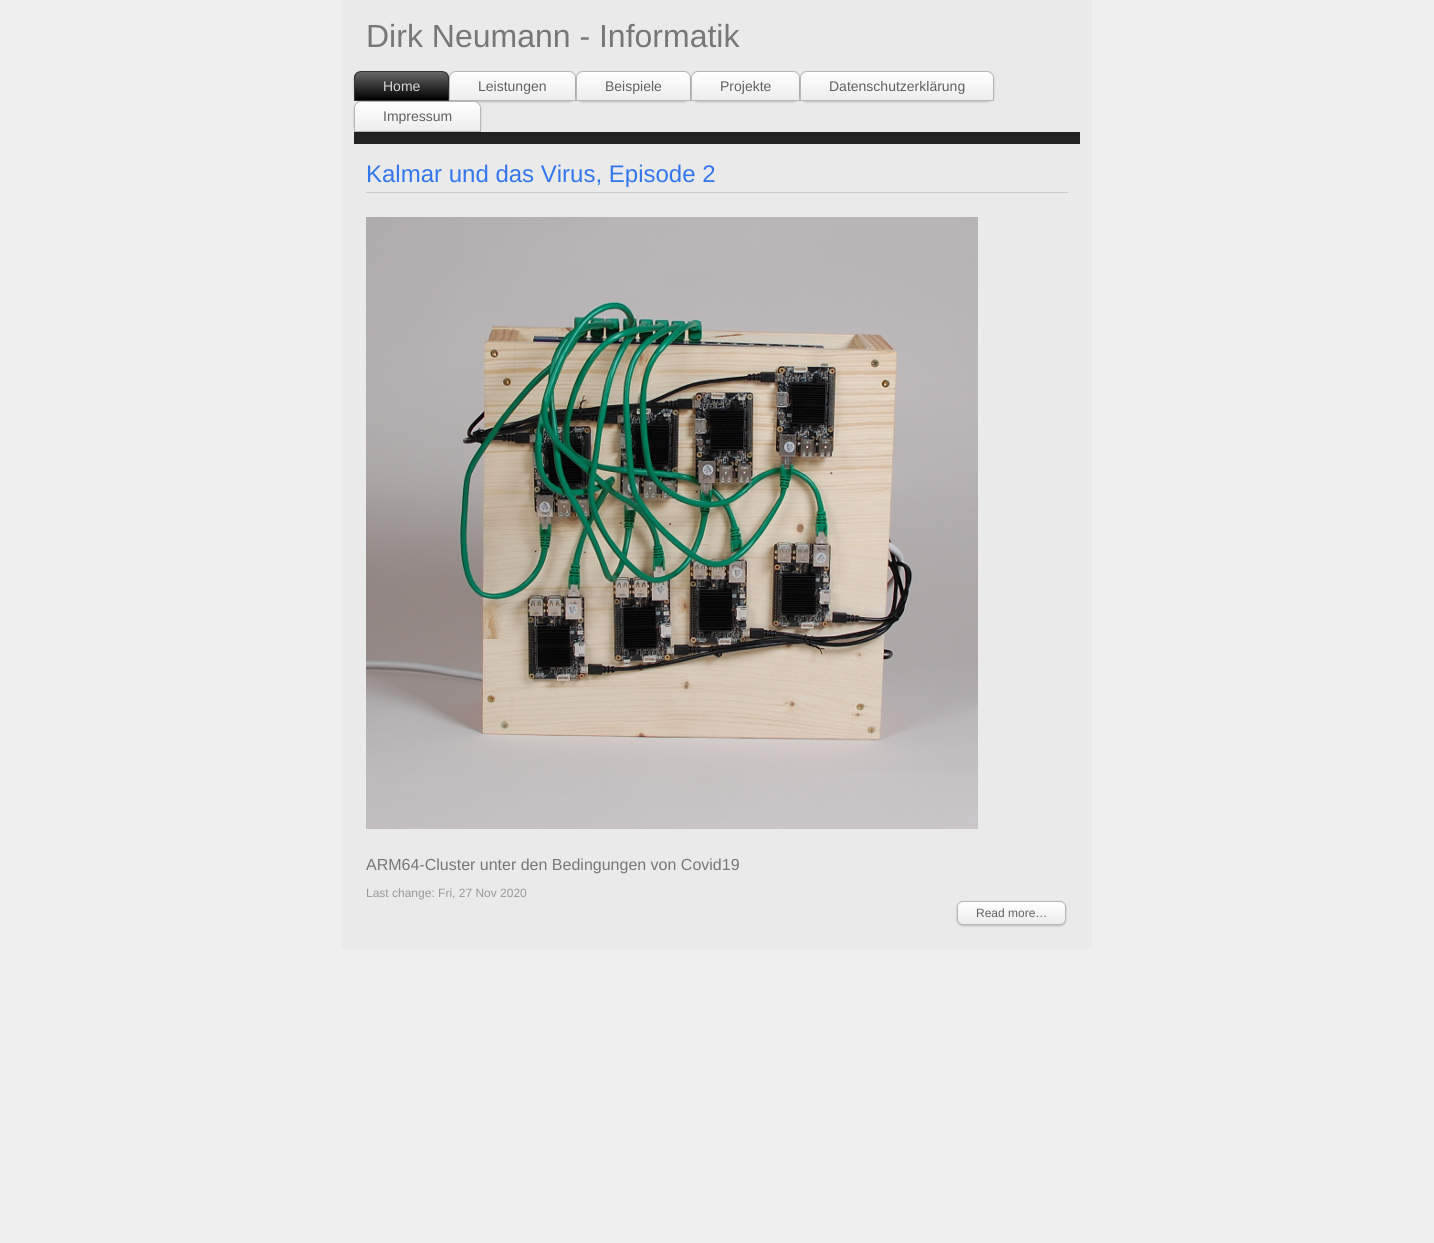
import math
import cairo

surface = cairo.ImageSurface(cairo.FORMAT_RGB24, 1434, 1243)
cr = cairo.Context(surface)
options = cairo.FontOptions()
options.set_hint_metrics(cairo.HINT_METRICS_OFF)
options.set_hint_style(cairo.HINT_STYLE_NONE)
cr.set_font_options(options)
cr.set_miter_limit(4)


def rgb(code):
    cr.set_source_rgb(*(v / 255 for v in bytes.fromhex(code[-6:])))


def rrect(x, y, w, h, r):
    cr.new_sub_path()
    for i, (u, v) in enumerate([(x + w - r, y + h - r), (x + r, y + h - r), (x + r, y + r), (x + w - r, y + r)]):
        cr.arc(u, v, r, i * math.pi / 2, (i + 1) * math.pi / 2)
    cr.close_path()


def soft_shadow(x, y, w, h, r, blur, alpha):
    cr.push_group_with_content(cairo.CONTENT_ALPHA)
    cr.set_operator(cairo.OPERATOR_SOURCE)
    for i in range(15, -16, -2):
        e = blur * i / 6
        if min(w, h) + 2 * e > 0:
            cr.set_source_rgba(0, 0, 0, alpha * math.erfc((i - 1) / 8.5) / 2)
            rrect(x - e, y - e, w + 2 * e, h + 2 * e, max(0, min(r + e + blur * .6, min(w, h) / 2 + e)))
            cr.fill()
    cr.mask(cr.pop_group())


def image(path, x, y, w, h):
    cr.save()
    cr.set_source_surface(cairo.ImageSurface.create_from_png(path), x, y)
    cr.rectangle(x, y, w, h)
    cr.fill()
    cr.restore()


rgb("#efefef")
cr.paint()
rgb("#eaeaea")
cr.rectangle(342, 0, 750, 949)
cr.fill()
rgb("#222222")
cr.rectangle(354, 132, 726, 12)
cr.fill()
rgb("#000000")
soft_shadow(354, 72, 95, 30, 7, 1, 0.2)
cr.save()
cr.new_path()
cr.move_to(361, 71)
cr.line_to(442, 71)
cr.curve_to(446, 71, 449, 74, 449, 78)
cr.line_to(449, 101)
cr.line_to(354, 101)
cr.line_to(354, 78)
cr.curve_to(354, 74, 357, 71, 361, 71)
cr.close_path()
cr.clip()
gradient = cairo.LinearGradient(355, 72, 355, 100)
gradient.add_color_stop_rgba(0, 0.4, 0.4, 0.4, 1)
gradient.add_color_stop_rgba(1, 0, 0, 0, 1)
cr.set_source(gradient)
cr.rectangle(354, 72, 95, 28)
cr.fill()
cr.restore()
cr.new_path()
cr.move_to(361, 71.5)
cr.line_to(442, 71.5)
cr.curve_to(445.5, 71.5, 448.5, 74.5, 448.5, 78)
cr.line_to(448.5, 100.5)
cr.line_to(354.5, 100.5)
cr.line_to(354.5, 78)
cr.curve_to(354.5, 74.5, 357.5, 71.5, 361, 71.5)
cr.close_path()
rgb("#333333")
cr.set_line_width(1)
cr.stroke()
rgb("#000000")
soft_shadow(449, 72, 127, 30, 7, 1, 0.2)
cr.save()
cr.new_path()
cr.move_to(456, 71)
cr.line_to(569, 71)
cr.curve_to(573, 71, 576, 74, 576, 78)
cr.line_to(576, 101)
cr.line_to(449, 101)
cr.line_to(449, 78)
cr.curve_to(449, 74, 452, 71, 456, 71)
cr.close_path()
cr.clip()
gradient = cairo.LinearGradient(450, 72, 450, 100)
gradient.add_color_stop_rgba(0, 1, 1, 1, 1)
gradient.add_color_stop_rgba(1, 0.929, 0.929, 0.929, 1)
cr.set_source(gradient)
cr.rectangle(449, 72, 127, 28)
cr.fill()
cr.restore()
cr.new_path()
cr.move_to(456, 71.5)
cr.line_to(569, 71.5)
cr.curve_to(572.5, 71.5, 575.5, 74.5, 575.5, 78)
cr.line_to(575.5, 100.5)
cr.line_to(449.5, 100.5)
cr.line_to(449.5, 78)
cr.curve_to(449.5, 74.5, 452.5, 71.5, 456, 71.5)
cr.close_path()
rgb("#b7b7b7")
cr.stroke()
rgb("#000000")
soft_shadow(576, 72, 115, 30, 7, 1, 0.2)
cr.save()
cr.new_path()
cr.move_to(583, 71)
cr.line_to(684, 71)
cr.curve_to(688, 71, 691, 74, 691, 78)
cr.line_to(691, 101)
cr.line_to(576, 101)
cr.line_to(576, 78)
cr.curve_to(576, 74, 579, 71, 583, 71)
cr.close_path()
cr.clip()
gradient = cairo.LinearGradient(577, 72, 577, 100)
gradient.add_color_stop_rgba(0, 1, 1, 1, 1)
gradient.add_color_stop_rgba(1, 0.929, 0.929, 0.929, 1)
cr.set_source(gradient)
cr.rectangle(576, 72, 115, 28)
cr.fill()
cr.restore()
cr.new_path()
cr.move_to(583, 71.5)
cr.line_to(684, 71.5)
cr.curve_to(687.5, 71.5, 690.5, 74.5, 690.5, 78)
cr.line_to(690.5, 100.5)
cr.line_to(576.5, 100.5)
cr.line_to(576.5, 78)
cr.curve_to(576.5, 74.5, 579.5, 71.5, 583, 71.5)
cr.close_path()
rgb("#b7b7b7")
cr.stroke()
rgb("#000000")
soft_shadow(691, 72, 109, 30, 7, 1, 0.2)
cr.save()
cr.new_path()
cr.move_to(698, 71)
cr.line_to(793, 71)
cr.curve_to(797, 71, 800, 74, 800, 78)
cr.line_to(800, 101)
cr.line_to(691, 101)
cr.line_to(691, 78)
cr.curve_to(691, 74, 694, 71, 698, 71)
cr.close_path()
cr.clip()
gradient = cairo.LinearGradient(692, 72, 692, 100)
gradient.add_color_stop_rgba(0, 1, 1, 1, 1)
gradient.add_color_stop_rgba(1, 0.929, 0.929, 0.929, 1)
cr.set_source(gradient)
cr.rectangle(691, 72, 109, 28)
cr.fill()
cr.restore()
cr.new_path()
cr.move_to(698, 71.5)
cr.line_to(793, 71.5)
cr.curve_to(796.5, 71.5, 799.5, 74.5, 799.5, 78)
cr.line_to(799.5, 100.5)
cr.line_to(691.5, 100.5)
cr.line_to(691.5, 78)
cr.curve_to(691.5, 74.5, 694.5, 71.5, 698, 71.5)
cr.close_path()
rgb("#b7b7b7")
cr.stroke()
rgb("#000000")
soft_shadow(800, 72, 194, 30, 7, 1, 0.2)
cr.save()
cr.new_path()
cr.move_to(807, 71)
cr.line_to(987, 71)
cr.curve_to(991, 71, 994, 74, 994, 78)
cr.line_to(994, 101)
cr.line_to(800, 101)
cr.line_to(800, 78)
cr.curve_to(800, 74, 803, 71, 807, 71)
cr.close_path()
cr.clip()
gradient = cairo.LinearGradient(801, 72, 801, 100)
gradient.add_color_stop_rgba(0, 1, 1, 1, 1)
gradient.add_color_stop_rgba(1, 0.929, 0.929, 0.929, 1)
cr.set_source(gradient)
cr.rectangle(800, 72, 194, 28)
cr.fill()
cr.restore()
cr.new_path()
cr.move_to(807, 71.5)
cr.line_to(987, 71.5)
cr.curve_to(990.5, 71.5, 993.5, 74.5, 993.5, 78)
cr.line_to(993.5, 100.5)
cr.line_to(800.5, 100.5)
cr.line_to(800.5, 78)
cr.curve_to(800.5, 74.5, 803.5, 71.5, 807, 71.5)
cr.close_path()
rgb("#b7b7b7")
cr.stroke()
rgb("#000000")
soft_shadow(354, 102, 127, 31, 7, 1, 0.2)
cr.save()
cr.new_path()
cr.move_to(361, 101)
cr.line_to(474, 101)
cr.curve_to(478, 101, 481, 104, 481, 108)
cr.line_to(481, 132)
cr.line_to(354, 132)
cr.line_to(354, 108)
cr.curve_to(354, 104, 357, 101, 361, 101)
cr.close_path()
cr.clip()
gradient = cairo.LinearGradient(355, 102, 355, 131)
gradient.add_color_stop_rgba(0, 1, 1, 1, 1)
gradient.add_color_stop_rgba(1, 0.929, 0.929, 0.929, 1)
cr.set_source(gradient)
cr.rectangle(354, 102, 127, 29)
cr.fill()
cr.restore()
cr.new_path()
cr.move_to(361, 101.5)
cr.line_to(474, 101.5)
cr.curve_to(477.5, 101.5, 480.5, 104.5, 480.5, 108)
cr.line_to(480.5, 131.5)
cr.line_to(354.5, 131.5)
cr.line_to(354.5, 108)
cr.curve_to(354.5, 104.5, 357.5, 101.5, 361, 101.5)
cr.close_path()
rgb("#b7b7b7")
cr.stroke()
rgb("#cccccc")
cr.rectangle(366, 192, 702, 1)
cr.fill()
image("img/1.png", 366, 217, 612, 612)
rgb("#000000")
soft_shadow(957, 902, 109, 24, 6, 1, 0.2)
cr.save()
rrect(957, 901, 109, 24, 6)
cr.clip()
gradient = cairo.LinearGradient(958, 902, 958, 924)
gradient.add_color_stop_rgba(0, 1, 1, 1, 1)
gradient.add_color_stop_rgba(1, 0.929, 0.929, 0.929, 1)
cr.set_source(gradient)
cr.rectangle(957, 902, 109, 22)
cr.fill()
cr.restore()
rrect(957.5, 901.5, 108, 23, 5.5)
rgb("#b7b7b7")
cr.stroke()
cr.select_font_face("Liberation Sans")
cr.set_font_size(32)
rgb("#777777")
cr.move_to(366, 47)
cr.show_text("Dirk Neumann - Informatik")
cr.set_font_size(14)
rgb("#d7d7d7")
cr.move_to(383, 91)
cr.show_text("Home")
rgb("#606060")
for x, y, s in [
    (478, 91, "Leistungen"),
    (605, 91, "Beispiele"),
    (720, 91, "Projekte"),
    (829, 91, "Datenschutzerklärung"),
    (383, 121, "Impressum"),
]:
    cr.move_to(x, y)
    cr.show_text(s)
cr.set_font_size(24)
rgb("#3377ee")
cr.move_to(366, 182)
cr.show_text("Kalmar und das Virus, Episode 2")
cr.set_font_size(16)
rgb("#777777")
cr.move_to(366, 870)
cr.show_text("ARM64-Cluster unter den Bedingungen von Covid19")
cr.set_font_size(12)
rgb("#999999")
cr.move_to(366, 897)
cr.show_text("Last change: Fri, 27 Nov 2020")
rgb("#606060")
cr.move_to(976, 917)
cr.show_text("Read more…")
surface.write_to_png("page.png")
